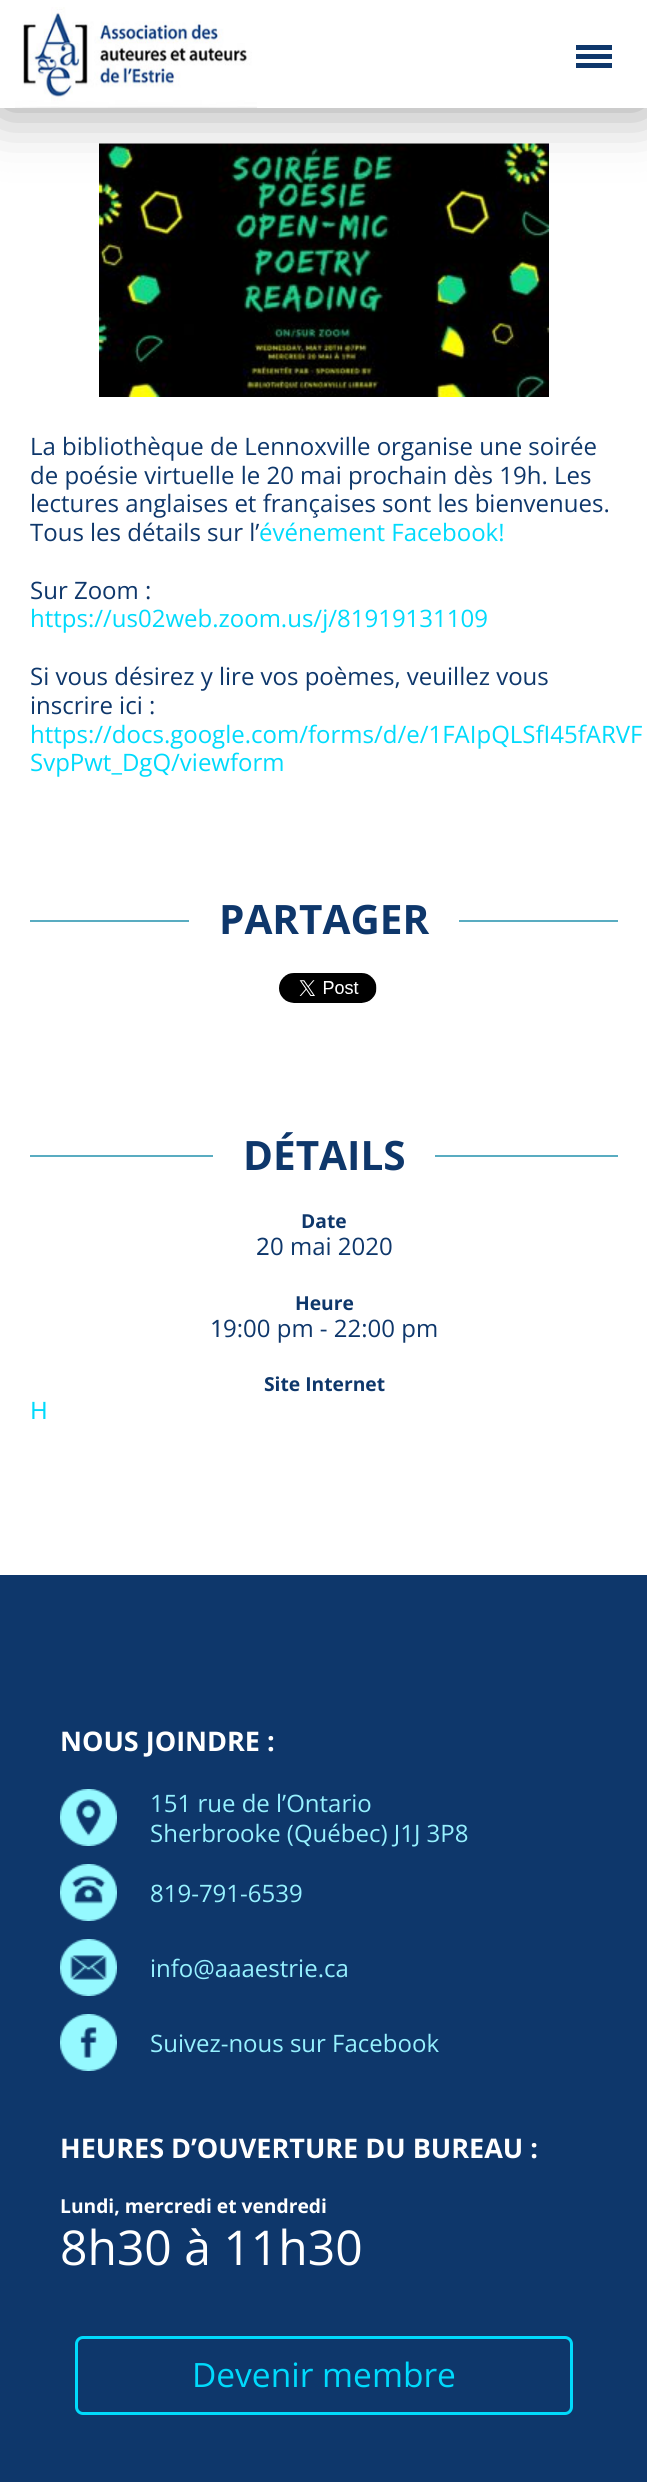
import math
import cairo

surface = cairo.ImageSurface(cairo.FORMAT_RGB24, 647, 2482)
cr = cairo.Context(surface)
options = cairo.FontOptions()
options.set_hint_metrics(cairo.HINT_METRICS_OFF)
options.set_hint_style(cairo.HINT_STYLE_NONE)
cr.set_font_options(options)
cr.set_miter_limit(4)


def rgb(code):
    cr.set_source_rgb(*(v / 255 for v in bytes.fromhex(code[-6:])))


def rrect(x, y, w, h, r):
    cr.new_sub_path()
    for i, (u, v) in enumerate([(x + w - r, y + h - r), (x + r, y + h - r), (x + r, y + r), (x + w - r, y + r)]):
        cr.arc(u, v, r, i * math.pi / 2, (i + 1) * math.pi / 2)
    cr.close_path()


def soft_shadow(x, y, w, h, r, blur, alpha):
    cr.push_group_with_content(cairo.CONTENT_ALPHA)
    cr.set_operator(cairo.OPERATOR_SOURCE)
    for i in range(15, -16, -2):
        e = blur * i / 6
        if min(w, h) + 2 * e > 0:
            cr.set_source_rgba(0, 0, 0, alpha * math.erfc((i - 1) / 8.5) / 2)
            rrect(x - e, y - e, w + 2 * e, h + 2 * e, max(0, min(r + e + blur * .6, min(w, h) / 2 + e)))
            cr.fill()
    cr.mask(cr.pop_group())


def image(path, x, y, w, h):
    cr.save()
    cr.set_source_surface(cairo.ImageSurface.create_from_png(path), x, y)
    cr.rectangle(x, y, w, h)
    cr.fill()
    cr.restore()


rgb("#ffffff")
cr.paint()
image("img/2.png", 99, 143, 450, 254)
rgb("#000000")
soft_shadow(0, 0, 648, 108, 0, 30, 0.4)
rgb("#ffffff")
cr.rectangle(0, 0, 647, 108)
cr.fill()
image("img/1.png", 15, 7, 242, 101)
for x, y, w, h, color in [
    (576, 54, 36, 5, "#0e376b"),
    (576, 45, 36, 5, "#0e376b"),
    (576, 63, 36, 5, "#0e376b"),
    (30, 920, 159, 2, "#59acc1"),
    (459, 920, 159, 2, "#59acc1"),
]:
    rgb(color)
    cr.rectangle(x, y, w, h)
    cr.fill()
image("img/3.png", 279, 973, 98, 30)
for x, y, w, h, color in [
    (30, 1155, 183, 2, "#59acc1"),
    (435, 1155, 183, 2, "#59acc1"),
    (0, 1575, 647, 907, "#0e376b"),
]:
    rgb(color)
    cr.rectangle(x, y, w, h)
    cr.fill()
image("img/4.png", 60, 1789, 57, 57)
image("img/5.png", 60, 1864, 57, 57)
image("img/6.png", 60, 1939, 57, 57)
image("img/7.png", 60, 2014, 57, 57)
rrect(76.5, 2337.5, 495, 76, 6.5)
rgb("#00dafc")
cr.set_line_width(3)
cr.stroke()
cr.select_font_face("Open Sans")
cr.set_font_size(24)
rgb("#0e376b")
for x, y, s in [
    (30, 455, "La bibliothèque de Lennoxville organise une soirée"),
    (30, 484, "de poésie virtuelle le 20 mai prochain dès 19h. Les"),
    (30, 512, "lectures anglaises et françaises sont les bienvenues."),
    (30, 541, "Tous les détails sur l’"),
]:
    cr.move_to(x, y)
    cr.show_text(s)
rgb("#00dafc")
cr.move_to(259, 541)
cr.show_text("événement Facebook!")
rgb("#0e376b")
cr.move_to(30, 599)
cr.show_text("Sur Zoom :")
rgb("#00dafc")
cr.move_to(30, 627)
cr.show_text("https://us02web.zoom.us/j/81919131109")
rgb("#0e376b")
cr.move_to(30, 685)
cr.show_text("Si vous désirez y lire vos poèmes, veuillez vous")
cr.move_to(30, 714)
cr.show_text("inscrire ici :")
rgb("#00dafc")
cr.move_to(30, 743)
cr.show_text("https://docs.google.com/forms/d/e/1FAIpQLSfI45fARVF")
cr.move_to(30, 771)
cr.show_text("SvpPwt_DgQ/viewform")
cr.select_font_face("Open Sans", cairo.FONT_SLANT_NORMAL, cairo.FONT_WEIGHT_BOLD)
cr.set_font_size(40.5)
rgb("#0e376b")
cr.move_to(219, 934)
cr.show_text("PARTAGER")
cr.move_to(243, 1170)
cr.show_text("DÉTAILS")
cr.set_font_size(19.25)
cr.move_to(301, 1228)
cr.show_text("Date")
cr.select_font_face("Noto Sans")
cr.set_font_size(24)
cr.move_to(256, 1255)
cr.show_text("2")
cr.select_font_face("Open Sans")
cr.move_to(270, 1255)
cr.show_text("0 mai 2020")
cr.select_font_face("Open Sans", cairo.FONT_SLANT_NORMAL, cairo.FONT_WEIGHT_BOLD)
cr.set_font_size(19.25)
cr.move_to(295, 1310)
cr.show_text("Heure")
cr.select_font_face("Noto Sans")
cr.set_font_size(24)
cr.move_to(210, 1337)
cr.show_text("1")
cr.select_font_face("Open Sans")
cr.move_to(223, 1337)
cr.show_text("9:00 pm - 22:00 pm")
cr.select_font_face("Open Sans", cairo.FONT_SLANT_NORMAL, cairo.FONT_WEIGHT_BOLD)
cr.set_font_size(19.25)
cr.move_to(264, 1391)
cr.show_text("Site Internet")
cr.select_font_face("Noto Sans")
cr.set_font_size(24)
rgb("#00dafc")
cr.move_to(30, 1419)
cr.show_text("H")
cr.select_font_face("Open Sans", cairo.FONT_SLANT_NORMAL, cairo.FONT_WEIGHT_BOLD)
cr.set_font_size(27)
rgb("#ffffff")
cr.move_to(60, 1751)
cr.show_text("NOUS JOINDRE :")
cr.select_font_face("Open Sans")
cr.set_font_size(24)
rgb("#96f1ff")
for x, y, s in [
    (150, 1812, "151 rue de l’Ontario"),
    (150, 1842, "Sherbrooke (Québec) J1J 3P8"),
    (150, 1902, "819-791-6539"),
    (150, 1977, "info@aaaestrie.ca"),
    (150, 2052, "Suivez-nous sur Facebook"),
]:
    cr.move_to(x, y)
    cr.show_text(s)
cr.select_font_face("Open Sans", cairo.FONT_SLANT_NORMAL, cairo.FONT_WEIGHT_BOLD)
cr.set_font_size(27)
rgb("#ffffff")
cr.move_to(60, 2158)
cr.show_text("HEURES D’OUVERTURE DU BUREAU :")
cr.set_font_size(19.25)
cr.move_to(60, 2213)
cr.show_text("Lundi, mercredi et vendredi")
cr.select_font_face("Open Sans")
cr.set_font_size(48)
cr.move_to(60, 2265)
cr.show_text("8h30 à 11h30")
cr.set_font_size(33.5)
rgb("#00dafc")
cr.move_to(192, 2387)
cr.show_text("Devenir membre")
surface.write_to_png("page.png")
